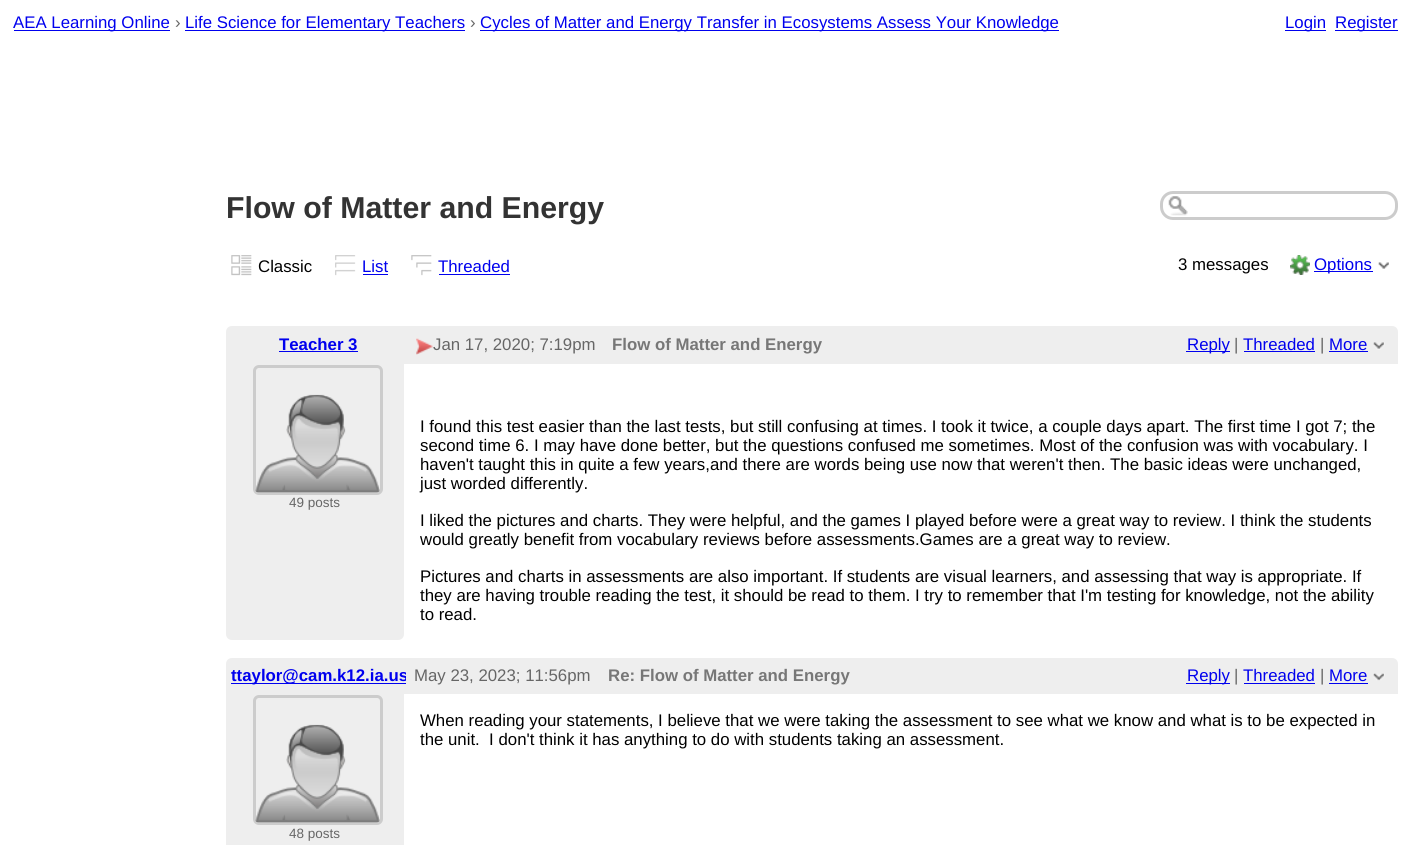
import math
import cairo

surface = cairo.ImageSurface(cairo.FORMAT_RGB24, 1411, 845)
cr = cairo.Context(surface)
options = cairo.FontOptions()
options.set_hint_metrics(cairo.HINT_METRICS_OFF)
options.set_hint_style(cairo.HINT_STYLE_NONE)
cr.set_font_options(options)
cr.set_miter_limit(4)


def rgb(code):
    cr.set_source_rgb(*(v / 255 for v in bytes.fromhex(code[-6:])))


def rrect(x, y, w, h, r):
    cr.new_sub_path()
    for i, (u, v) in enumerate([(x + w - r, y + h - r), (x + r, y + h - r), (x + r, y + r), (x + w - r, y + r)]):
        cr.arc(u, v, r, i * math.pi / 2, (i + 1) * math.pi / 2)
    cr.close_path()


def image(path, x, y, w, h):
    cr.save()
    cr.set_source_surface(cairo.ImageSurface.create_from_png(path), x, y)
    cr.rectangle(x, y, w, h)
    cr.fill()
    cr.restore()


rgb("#ffffff")
cr.paint()
for x, y, w, h, color in [
    (14, 30, 156, 1, "#0000ee"),
    (185, 30, 280, 1, "#0000ee"),
    (480, 30, 579, 1, "#0000ee"),
    (1285, 30, 41, 1, "#0000ee"),
    (1335, 30, 63, 1, "#0000ee"),
]:
    rgb(color)
    cr.rectangle(x, y, w, h)
    cr.fill()
image("img/1.png", 1168, 196, 20, 20)
rrect(1161.5, 192.5, 235, 26, 11.5)
rgb("#cccccc")
cr.set_line_width(3)
cr.stroke()
image("img/2.png", 231, 255, 21, 21)
image("img/3.png", 335, 255, 21, 21)
rgb("#0000ee")
cr.rectangle(363, 274, 25, 1)
cr.fill()
image("img/4.png", 411, 255, 21, 21)
cr.rectangle(439, 274, 71, 1)
cr.fill()
image("img/5.png", 1290, 255, 20, 20)
cr.rectangle(1314, 271, 59, 1)
cr.fill()
image("img/6.png", 1378, 262, 11, 7)
rgb("#eeeeee")
cr.new_path()
cr.move_to(232, 326)
cr.line_to(1392, 326)
cr.curve_to(1395.5, 326, 1398, 328.5, 1398, 332)
cr.line_to(1398, 364)
cr.line_to(226, 364)
cr.line_to(226, 332)
cr.curve_to(226, 328.5, 228.5, 326, 232, 326)
cr.close_path()
cr.fill()
rgb("#0000ee")
cr.rectangle(279, 351, 79, 1)
cr.fill()
image("img/7.png", 416, 338, 17, 17)
for x, y, w, h, color in [
    (1186, 351, 44, 1, "#0000ee"),
    (1244, 351, 71, 1, "#0000ee"),
    (1329, 351, 39, 1, "#0000ee"),
]:
    rgb(color)
    cr.rectangle(x, y, w, h)
    cr.fill()
image("img/8.png", 1373, 342, 12, 8)
rgb("#eeeeee")
cr.new_path()
cr.move_to(226, 364)
cr.line_to(404, 364)
cr.line_to(404, 634)
cr.curve_to(404, 637.5, 401.5, 640, 398, 640)
cr.line_to(232, 640)
cr.curve_to(228.5, 640, 226, 637.5, 226, 634)
cr.close_path()
cr.fill()
rrect(254.5, 366.5, 127, 127, 4.5)
rgb("#cccccc")
cr.stroke()
image("img/9.png", 255, 394, 125, 99)
rgb("#eeeeee")
cr.new_path()
cr.move_to(232, 658)
cr.line_to(1392, 658)
cr.curve_to(1395.5, 658, 1398, 660.5, 1398, 664)
cr.line_to(1398, 694)
cr.line_to(226, 694)
cr.line_to(226, 664)
cr.curve_to(226, 660.5, 228.5, 658, 232, 658)
cr.close_path()
cr.fill()
for x, y, w, h, color in [
    (231, 683, 175, 1, "#0000ee"),
    (1186, 683, 44, 1, "#0000ee"),
    (1244, 683, 71, 1, "#0000ee"),
    (1329, 683, 39, 1, "#0000ee"),
]:
    rgb(color)
    cr.rectangle(x, y, w, h)
    cr.fill()
image("img/10.png", 1373, 673, 12, 8)
rgb("#eeeeee")
cr.rectangle(226, 694, 178, 151)
cr.fill()
rrect(254.5, 696.5, 127, 127, 4.5)
rgb("#cccccc")
cr.stroke()
image("img/9.png", 255, 724, 125, 99)
cr.select_font_face("Liberation Sans")
cr.set_font_size(16.8)
rgb("#0000ee")
cr.move_to(13, 28)
cr.show_text("AEA Learning Online")
rgb("#666666")
cr.move_to(175, 28)
cr.show_text("›")
rgb("#0000ee")
cr.move_to(185, 28)
cr.show_text("Life Science for Elementary Teachers")
rgb("#666666")
cr.move_to(470, 28)
cr.show_text("›")
rgb("#0000ee")
for x, y, s in [
    (480, 28, "Cycles of Matter and Energy Transfer in Ecosystems Assess Your Knowledge"),
    (1285, 28, "Login"),
    (1335, 28, "Register"),
]:
    cr.move_to(x, y)
    cr.show_text(s)
cr.select_font_face("Liberation Sans", cairo.FONT_SLANT_NORMAL, cairo.FONT_WEIGHT_BOLD)
cr.set_font_size(30.25)
rgb("#333333")
cr.move_to(226, 218)
cr.show_text("Flow of Matter and Energy")
cr.select_font_face("Liberation Sans")
cr.set_font_size(16.8)
rgb("#000000")
cr.move_to(258, 272)
cr.show_text("Classic")
rgb("#0000ee")
cr.move_to(362, 272)
cr.show_text("List")
cr.move_to(438, 272)
cr.show_text("Threaded")
rgb("#000000")
cr.move_to(1178, 270)
cr.show_text("3 messages")
rgb("#0000ee")
cr.move_to(1314, 270)
cr.show_text("Options")
cr.select_font_face("Liberation Sans", cairo.FONT_SLANT_NORMAL, cairo.FONT_WEIGHT_BOLD)
cr.move_to(279, 350)
cr.show_text("Teacher 3")
cr.select_font_face("Liberation Sans")
rgb("#666666")
cr.move_to(433, 350)
cr.show_text("Jan 17, 2020; 7:19pm")
cr.select_font_face("Liberation Sans", cairo.FONT_SLANT_NORMAL, cairo.FONT_WEIGHT_BOLD)
rgb("#777777")
cr.move_to(612, 350)
cr.show_text("Flow of Matter and Energy")
cr.select_font_face("Liberation Sans")
rgb("#0000ee")
cr.move_to(1187, 350)
cr.show_text("Reply")
rgb("#666666")
cr.move_to(1234, 350)
cr.show_text("|")
rgb("#0000ee")
cr.move_to(1243, 350)
cr.show_text("Threaded")
rgb("#666666")
cr.move_to(1320, 350)
cr.show_text("|")
rgb("#0000ee")
cr.move_to(1329, 350)
cr.show_text("More")
cr.set_font_size(13.5)
rgb("#666666")
cr.move_to(289, 507)
cr.show_text("49 posts")
cr.set_font_size(16.8)
rgb("#000000")
for x, y, s in [
    (420, 432, "I found this test easier than the last tests, but still confusing at times. I took it twice, a couple days apart. The first time I got 7; the"),
    (420, 451, "second time 6. I may have done better, but the questions confused me sometimes. Most of the confusion was with vocabulary. I"),
    (420, 470, "haven't taught this in quite a few years,and there are words being use now that weren't then. The basic ideas were unchanged,"),
    (420, 489, "just worded differently."),
    (420, 526, "I liked the pictures and charts. They were helpful, and the games I played before were a great way to review. I think the students"),
    (420, 545, "would greatly benefit from vocabulary reviews before assessments.Games are a great way to review."),
    (420, 582, "Pictures and charts in assessments are also important. If students are visual learners, and assessing that way is appropriate. If"),
    (420, 601, "they are having trouble reading the test, it should be read to them. I try to remember that I'm testing for knowledge, not the ability"),
    (420, 620, "to read."),
]:
    cr.move_to(x, y)
    cr.show_text(s)
cr.save()
cr.rectangle(231, 666, 175, 19)
cr.clip()
cr.select_font_face("Liberation Sans", cairo.FONT_SLANT_NORMAL, cairo.FONT_WEIGHT_BOLD)
rgb("#0000ee")
cr.move_to(231, 681)
cr.show_text("ttaylor@cam.k12.ia.us")
cr.restore()
rgb("#666666")
cr.move_to(414, 681)
cr.show_text("May 23, 2023; 11:56pm")
cr.select_font_face("Liberation Sans", cairo.FONT_SLANT_NORMAL, cairo.FONT_WEIGHT_BOLD)
rgb("#777777")
cr.move_to(608, 681)
cr.show_text("Re: Flow of Matter and Energy")
cr.select_font_face("Liberation Sans")
rgb("#0000ee")
cr.move_to(1187, 681)
cr.show_text("Reply")
rgb("#666666")
cr.move_to(1234, 681)
cr.show_text("|")
rgb("#0000ee")
cr.move_to(1243, 681)
cr.show_text("Threaded")
rgb("#666666")
cr.move_to(1320, 681)
cr.show_text("|")
rgb("#0000ee")
cr.move_to(1329, 681)
cr.show_text("More")
rgb("#000000")
cr.move_to(420, 726)
cr.show_text("When reading your statements, I believe that we were taking the assessment to see what we know and what is to be expected in")
cr.move_to(420, 745)
cr.show_text("the unit.  I don't think it has anything to do with students taking an assessment.")
cr.set_font_size(13.5)
rgb("#666666")
cr.move_to(289, 838)
cr.show_text("48 posts")
surface.write_to_png("page.png")
